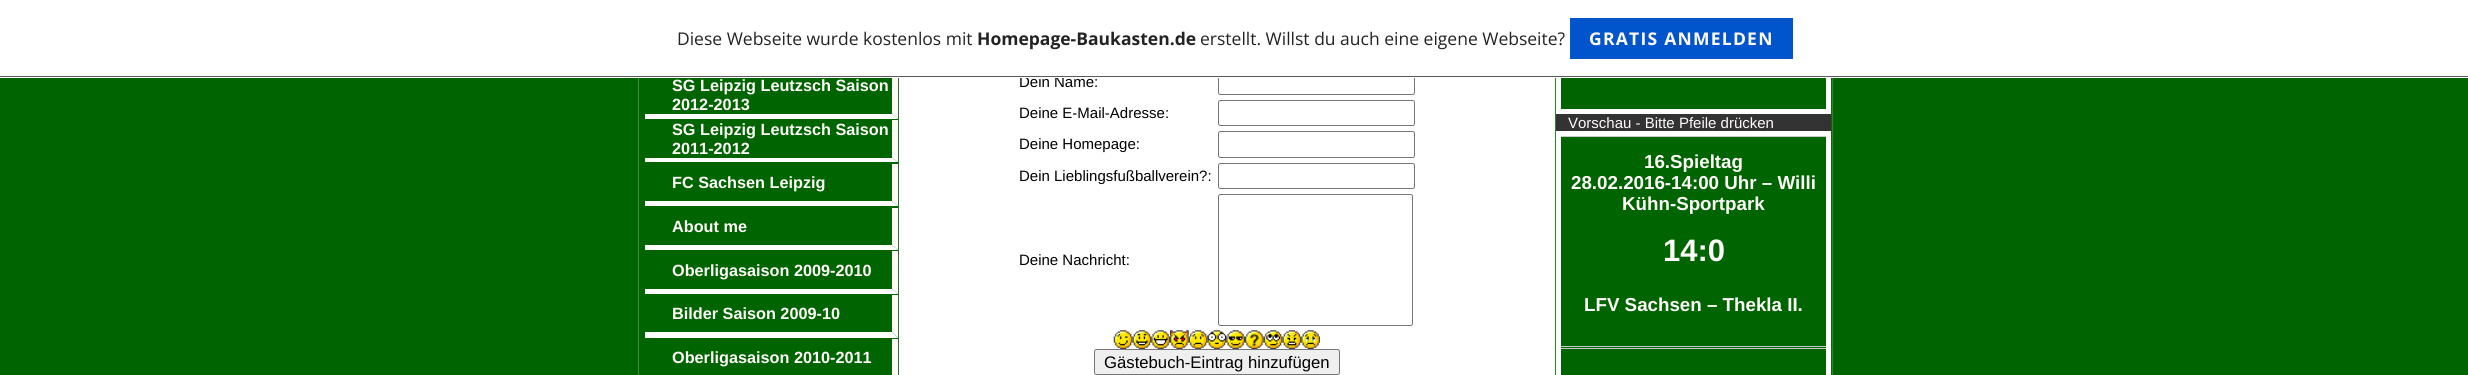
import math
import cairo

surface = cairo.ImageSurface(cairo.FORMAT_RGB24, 2468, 375)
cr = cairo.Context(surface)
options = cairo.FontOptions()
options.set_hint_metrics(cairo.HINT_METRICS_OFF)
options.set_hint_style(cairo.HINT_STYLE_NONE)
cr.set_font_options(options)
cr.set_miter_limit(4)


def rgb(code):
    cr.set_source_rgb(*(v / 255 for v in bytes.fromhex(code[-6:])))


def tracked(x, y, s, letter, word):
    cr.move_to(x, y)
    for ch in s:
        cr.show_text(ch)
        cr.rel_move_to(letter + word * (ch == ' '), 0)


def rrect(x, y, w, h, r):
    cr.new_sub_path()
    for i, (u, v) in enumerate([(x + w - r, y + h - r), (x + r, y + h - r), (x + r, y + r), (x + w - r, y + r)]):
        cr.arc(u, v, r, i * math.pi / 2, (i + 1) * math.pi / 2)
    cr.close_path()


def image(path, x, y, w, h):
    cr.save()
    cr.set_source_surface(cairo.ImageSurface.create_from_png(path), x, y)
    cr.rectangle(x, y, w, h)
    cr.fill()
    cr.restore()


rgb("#006400")
cr.paint()
image("img/1.png", 638, 78, 1, 297)
rgb("#fffafa")
cr.new_path()
cr.move_to(898, 76)
cr.line_to(898, 119)
cr.line_to(892, 114)
cr.line_to(892, 76)
cr.close_path()
cr.fill()
rgb("#ffffff")
cr.new_path()
cr.move_to(898, 119)
cr.line_to(645, 119)
cr.line_to(645, 114)
cr.line_to(892, 114)
cr.close_path()
cr.fill()
rgb("#fffafa")
cr.new_path()
cr.move_to(898, 120)
cr.line_to(898, 162)
cr.line_to(892, 158)
cr.line_to(892, 120)
cr.close_path()
cr.fill()
rgb("#ffffff")
cr.new_path()
cr.move_to(898, 162)
cr.line_to(645, 162)
cr.line_to(645, 158)
cr.line_to(892, 158)
cr.close_path()
cr.fill()
rgb("#fffafa")
cr.new_path()
cr.move_to(898, 164)
cr.line_to(898, 206)
cr.line_to(892, 201)
cr.line_to(892, 164)
cr.close_path()
cr.fill()
rgb("#ffffff")
cr.new_path()
cr.move_to(898, 206)
cr.line_to(645, 206)
cr.line_to(645, 201)
cr.line_to(892, 201)
cr.close_path()
cr.fill()
rgb("#fffafa")
cr.new_path()
cr.move_to(898, 208)
cr.line_to(898, 250)
cr.line_to(892, 245)
cr.line_to(892, 208)
cr.close_path()
cr.fill()
rgb("#ffffff")
cr.new_path()
cr.move_to(898, 250)
cr.line_to(645, 250)
cr.line_to(645, 245)
cr.line_to(892, 245)
cr.close_path()
cr.fill()
rgb("#fffafa")
cr.new_path()
cr.move_to(898, 251)
cr.line_to(898, 294)
cr.line_to(892, 289)
cr.line_to(892, 251)
cr.close_path()
cr.fill()
rgb("#ffffff")
cr.new_path()
cr.move_to(898, 294)
cr.line_to(645, 294)
cr.line_to(645, 289)
cr.line_to(892, 289)
cr.close_path()
cr.fill()
rgb("#fffafa")
cr.new_path()
cr.move_to(898, 295)
cr.line_to(898, 338)
cr.line_to(892, 332)
cr.line_to(892, 295)
cr.close_path()
cr.fill()
rgb("#ffffff")
cr.new_path()
cr.move_to(898, 338)
cr.line_to(645, 338)
cr.line_to(645, 332)
cr.line_to(892, 332)
cr.close_path()
cr.fill()
rgb("#fffafa")
cr.new_path()
cr.move_to(898, 339)
cr.line_to(898, 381)
cr.line_to(892, 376)
cr.line_to(892, 339)
cr.close_path()
cr.fill()
image("img/2.png", 898, 78, 1, 297)
rgb("#ffffff")
cr.rectangle(899, 78, 656, 297)
cr.fill()
rrect(1218.5, 69.5, 196, 25, 2)
rgb("#767676")
cr.set_line_width(1)
cr.stroke()
rrect(1218.5, 100.5, 196, 25, 2)
cr.stroke()
rrect(1218.5, 131.5, 196, 26, 2)
cr.stroke()
rrect(1218.5, 163.5, 196, 25, 2)
cr.stroke()
rrect(1218.5, 194.5, 194, 131, 2)
cr.stroke()
image("img/3.png", 1113, 330, 20, 19)
image("img/4.png", 1132, 330, 20, 19)
image("img/5.png", 1151, 330, 19, 19)
image("img/6.png", 1170, 330, 19, 19)
image("img/7.png", 1188, 330, 20, 19)
image("img/8.png", 1207, 330, 20, 19)
image("img/9.png", 1226, 330, 19, 19)
image("img/10.png", 1245, 330, 19, 19)
image("img/11.png", 1263, 330, 20, 19)
image("img/12.png", 1282, 330, 20, 19)
image("img/13.png", 1301, 330, 19, 19)
rgb("#efefef")
rrect(1094.5, 349.5, 245, 25, 2)
cr.fill_preserve()
rgb("#767676")
cr.stroke()
cr.rectangle(1555.5, -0.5, 277, 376)
rgb("#228b22")
cr.stroke()
image("img/14.png", 1831, 78, 1, 297)
image("img/15.png", 1831, 78, 1, 297)
cr.rectangle(1558.5, 48.5, 270, 63)
rgb("#ffffff")
cr.set_line_width(5)
cr.stroke()
rgb("#333333")
cr.rectangle(1556, 114, 275, 17)
cr.fill()
cr.rectangle(1558.5, 133.5, 270, 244)
rgb("#ffffff")
cr.stroke()
for x, y, w, h, color in [
    (1561, 136, 265, 1, "#c9c9c9"),
    (1561, 346, 265, 1, "#c9c9c9"),
    (1561, 348, 265, 1, "#c9c9c9"),
]:
    rgb(color)
    cr.rectangle(x, y, w, h)
    cr.fill()
cr.select_font_face("Liberation Sans", cairo.FONT_SLANT_NORMAL, cairo.FONT_WEIGHT_BOLD)
cr.set_font_size(16.25)
rgb("#fffafa")
for x, y, s in [
    (672, 91, "SG Leipzig Leutzsch Saison"),
    (672, 110, "2012-2013"),
    (672, 135, "SG Leipzig Leutzsch Saison"),
    (672, 154, "2011-2012"),
    (672, 188, "FC Sachsen Leipzig"),
    (672, 232, "About me"),
    (672, 276, "Oberligasaison 2009-2010"),
    (672, 319, "Bilder Saison 2009-10"),
    (672, 363, "Oberligasaison 2010-2011"),
]:
    cr.move_to(x, y)
    cr.show_text(s)
cr.select_font_face("Liberation Sans")
cr.set_font_size(15)
rgb("#000000")
cr.move_to(1019, 87)
cr.show_text("Dein Name:")
rgb("#ffffff")
cr.rectangle(0, 0, 2468, 78)
cr.fill()
rgb("#0055cc")
cr.rectangle(1570, 18, 223, 41)
cr.fill()
cr.select_font_face("Open Sans", cairo.FONT_SLANT_NORMAL, cairo.FONT_WEIGHT_BOLD)
cr.set_font_size(17.5)
rgb("#fffafa")
tracked(1589, 45, "GRATIS ANMELDEN", 1.25, 0)
cr.select_font_face("Open Sans")
rgb("#232323")
cr.move_to(1200, 45)
cr.show_text("erstellt. Willst du auch eine eigene Webseite?")
cr.select_font_face("Open Sans", cairo.FONT_SLANT_NORMAL, cairo.FONT_WEIGHT_BOLD)
cr.move_to(977, 45)
cr.show_text("Homepage-Baukasten.de")
cr.select_font_face("Open Sans")
cr.move_to(677, 45)
cr.show_text("Diese Webseite wurde kostenlos mit")
rgb("#5a5a5a")
cr.rectangle(0, 76, 2468, 1)
cr.fill()
cr.select_font_face("Liberation Sans")
cr.set_font_size(15)
rgb("#000000")
for x, y, s in [
    (1019, 118, "Deine E-Mail-Adresse:"),
    (1019, 149, "Deine Homepage:"),
    (1019, 181, "Dein Lieblingsfußballverein?:"),
    (1019, 265, "Deine Nachricht:"),
]:
    cr.move_to(x, y)
    cr.show_text(s)
cr.set_font_size(16.7)
cr.move_to(1104, 368)
cr.show_text("Gästebuch-Eintrag hinzufügen")
cr.set_font_size(15)
rgb("#fffafa")
cr.move_to(1568, 128)
cr.show_text("Vorschau - Bitte Pfeile drücken")
cr.select_font_face("Liberation Sans", cairo.FONT_SLANT_NORMAL, cairo.FONT_WEIGHT_BOLD)
cr.set_font_size(18.75)
for x, y, s in [
    (1644, 168, "16.Spieltag"),
    (1571, 189, "28.02.2016-14:00 Uhr – Willi"),
    (1622, 210, "Kühn-Sportpark"),
]:
    cr.move_to(x, y)
    cr.show_text(s)
cr.set_font_size(31)
cr.move_to(1663, 261)
cr.show_text("14:0")
cr.set_font_size(18.75)
cr.move_to(1584, 311)
cr.show_text("LFV Sachsen – Thekla II.")
surface.write_to_png("page.png")
